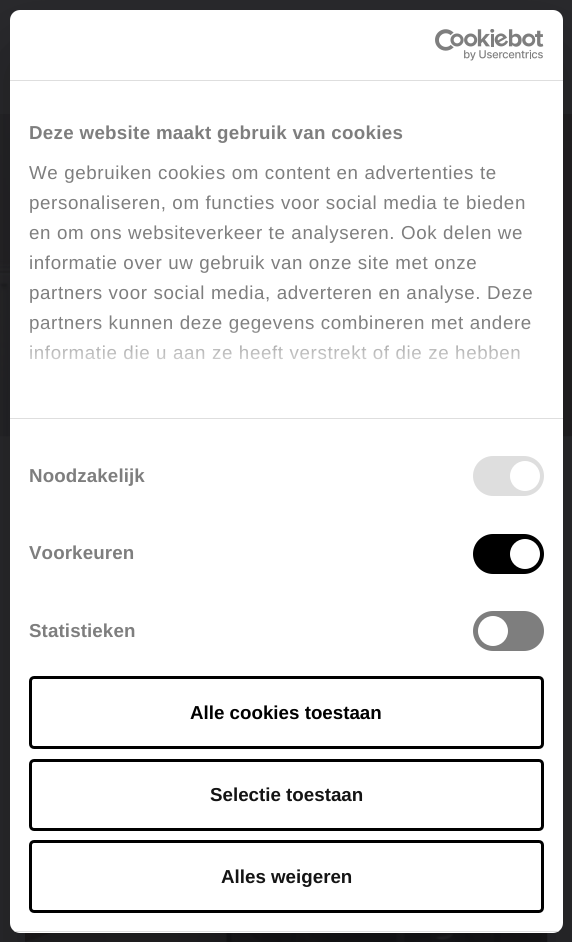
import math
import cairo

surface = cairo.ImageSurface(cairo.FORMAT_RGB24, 572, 942)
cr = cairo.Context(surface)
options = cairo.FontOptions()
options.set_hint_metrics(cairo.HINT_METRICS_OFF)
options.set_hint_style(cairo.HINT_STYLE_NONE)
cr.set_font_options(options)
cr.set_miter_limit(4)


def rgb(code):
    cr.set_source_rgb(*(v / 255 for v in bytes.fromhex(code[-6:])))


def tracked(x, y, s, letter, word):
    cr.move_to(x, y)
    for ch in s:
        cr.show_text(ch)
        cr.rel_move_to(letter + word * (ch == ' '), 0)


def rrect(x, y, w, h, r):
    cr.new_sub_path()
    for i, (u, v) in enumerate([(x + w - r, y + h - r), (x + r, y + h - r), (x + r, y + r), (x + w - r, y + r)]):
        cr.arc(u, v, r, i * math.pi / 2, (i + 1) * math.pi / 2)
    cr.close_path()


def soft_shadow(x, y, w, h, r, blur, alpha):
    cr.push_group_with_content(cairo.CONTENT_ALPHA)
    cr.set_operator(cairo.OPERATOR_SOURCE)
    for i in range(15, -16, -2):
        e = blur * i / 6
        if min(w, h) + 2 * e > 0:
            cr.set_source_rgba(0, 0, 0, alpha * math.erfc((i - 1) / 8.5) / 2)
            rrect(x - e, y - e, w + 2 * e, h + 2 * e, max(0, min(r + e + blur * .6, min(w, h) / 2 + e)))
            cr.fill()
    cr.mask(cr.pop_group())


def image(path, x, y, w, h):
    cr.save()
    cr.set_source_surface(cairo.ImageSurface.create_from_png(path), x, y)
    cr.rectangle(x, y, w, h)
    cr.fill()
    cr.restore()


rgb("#2a2a2d")
cr.paint()
image("img/1.png", 0, 114, 572, 323)
image("img/2.png", 25, 933, 523, 9)
rgb("#000000")
soft_shadow(10, 50, 553, 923, 10, 42.5, 0.3)
rgb("#ffffff")
rrect(10, 10, 553, 923, 10)
cr.fill()
rgb("#dedede")
cr.rectangle(10, 80, 553, 1)
cr.fill()
image("img/3.png", 435, 29, 109, 32)
cr.rectangle(10, 418, 553, 1)
cr.fill()
rrect(473, 456, 71, 40, 20)
cr.fill()
rgb("#ffffff")
cr.arc(525, 476, 15, 0, 2 * math.pi)
cr.fill()
rgb("#000000")
rrect(473, 534, 71, 40, 20)
cr.fill()
rgb("#ffffff")
cr.arc(525, 554, 15, 0, 2 * math.pi)
cr.fill()
rgb("#7e7e7e")
rrect(473, 611, 71, 40, 20)
cr.fill()
rgb("#ffffff")
cr.arc(493, 631, 15, 0, 2 * math.pi)
cr.fill()
cr.save()
rrect(10, 10, 553, 923, 10)
cr.clip()
rgb("#dedede")
cr.rectangle(10, 931, 553, 1)
cr.fill()
cr.restore()
rrect(30.5, 677.5, 512, 70, 3.5)
rgb("#000000")
cr.set_line_width(3)
cr.stroke()
rrect(30.5, 760.5, 512, 69, 3.5)
cr.stroke()
rrect(30.5, 841.5, 512, 70, 3.5)
cr.stroke()
cr.select_font_face("Liberation Sans", cairo.FONT_SLANT_NORMAL, cairo.FONT_WEIGHT_BOLD)
cr.set_font_size(18.75)
rgb("#7e7e7e")
tracked(29, 139, "Deze website maakt gebruik van cookies", 0.3, 0)
cr.select_font_face("Liberation Sans")
for x, y, s in [
    (29, 179, "We gebruiken cookies om content en advertenties te"),
    (29, 209, "personaliseren, om functies voor social media te bieden"),
    (29, 239, "en om ons websiteverkeer te analyseren. Ook delen we"),
    (29, 269, "informatie over uw gebruik van onze site met onze"),
    (29, 299, "partners voor social media, adverteren en analyse. Deze"),
    (29, 329, "partners kunnen deze gegevens combineren met andere"),
    (29, 359, "informatie die u aan ze heeft verstrekt of die ze hebben"),
]:
    tracked(x, y, s, 0.62, 0)
gradient = cairo.LinearGradient(278, 418, 278, 324)
gradient.add_color_stop_rgba(0, 1, 1, 1, 1)
gradient.add_color_stop_rgba(0.5, 1, 1, 1, 0.8)
gradient.add_color_stop_rgba(1, 1, 1, 1, 0)
cr.set_source(gradient)
cr.rectangle(30, 325, 500, 35)
cr.fill()
cr.select_font_face("Liberation Sans", cairo.FONT_SLANT_NORMAL, cairo.FONT_WEIGHT_BOLD)
rgb("#7e7e7e")
for x, y, s in [
    (29, 482, "Noodzakelijk"),
    (29, 559, "Voorkeuren"),
    (29, 637, "Statistieken"),
]:
    tracked(x, y, s, 0.1, 0)
rgb("#000000")
cr.move_to(190, 719)
cr.show_text("Alle cookies toestaan")
rgb("#141414")
cr.move_to(210, 801)
cr.show_text("Selectie toestaan")
cr.move_to(221, 883)
cr.show_text("Alles weigeren")
surface.write_to_png("page.png")
